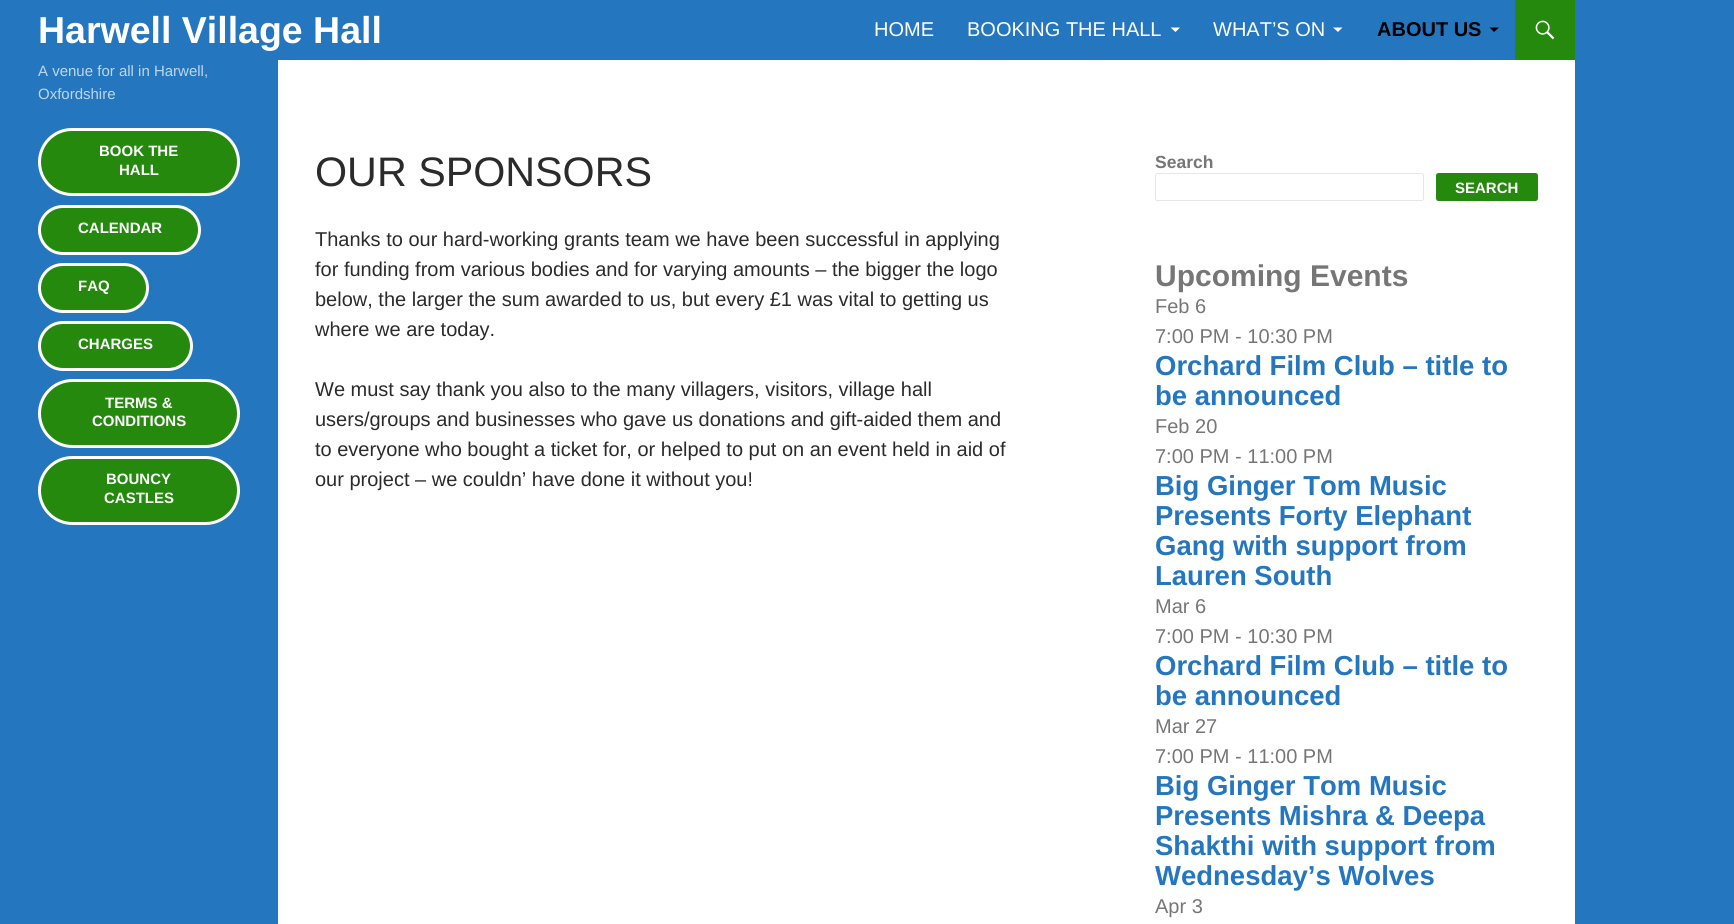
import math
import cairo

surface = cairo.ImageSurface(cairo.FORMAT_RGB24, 1734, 924)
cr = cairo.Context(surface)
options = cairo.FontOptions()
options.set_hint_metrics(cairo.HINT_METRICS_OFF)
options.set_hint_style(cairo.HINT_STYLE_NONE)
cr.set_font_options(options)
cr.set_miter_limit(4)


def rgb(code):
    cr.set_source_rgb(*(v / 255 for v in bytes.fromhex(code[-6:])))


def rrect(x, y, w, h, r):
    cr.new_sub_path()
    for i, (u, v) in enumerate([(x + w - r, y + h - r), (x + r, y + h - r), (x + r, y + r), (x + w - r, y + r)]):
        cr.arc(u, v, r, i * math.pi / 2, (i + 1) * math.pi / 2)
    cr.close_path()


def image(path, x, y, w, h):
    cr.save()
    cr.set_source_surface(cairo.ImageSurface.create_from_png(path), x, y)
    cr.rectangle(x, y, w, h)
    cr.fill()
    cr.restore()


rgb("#2476bf")
cr.paint()
rgb("#ffffff")
cr.rectangle(278, 60, 1297, 864)
cr.fill()
cr.new_path()
cr.move_to(1170.5, 27.5)
cr.line_to(1175.5, 32)
cr.line_to(1180, 27.5)
cr.close_path()
cr.fill()
cr.new_path()
cr.move_to(1333, 27.5)
cr.line_to(1338, 32)
cr.line_to(1342.5, 27.5)
cr.close_path()
cr.fill()
rgb("#000000")
cr.new_path()
cr.move_to(1489.5, 27.5)
cr.line_to(1494, 32)
cr.line_to(1499, 27.5)
cr.close_path()
cr.fill()
rgb("#24890d")
cr.rectangle(1515, 0, 60, 60)
cr.fill()
image("img/1.png", 1535, 20, 20, 20)
rrect(39.5, 129.5, 199, 65, 32.5)
cr.fill_preserve()
rgb("#ffffff")
cr.set_line_width(3)
cr.stroke()
rgb("#24890d")
rrect(39.5, 206.5, 160, 47, 23.5)
cr.fill_preserve()
rgb("#ffffff")
cr.stroke()
rgb("#24890d")
rrect(39.5, 264.5, 108, 47, 23.5)
cr.fill_preserve()
rgb("#ffffff")
cr.stroke()
rgb("#24890d")
rrect(39.5, 322.5, 152, 47, 23.5)
cr.fill_preserve()
rgb("#ffffff")
cr.stroke()
rgb("#24890d")
rrect(39.5, 380.5, 199, 66, 33)
cr.fill_preserve()
rgb("#ffffff")
cr.stroke()
rgb("#24890d")
rrect(39.5, 457.5, 199, 66, 33)
cr.fill_preserve()
rgb("#ffffff")
cr.stroke()
rrect(1155.5, 173.5, 268, 27, 2)
rgb("#e6e6e6")
cr.set_line_width(1)
cr.stroke()
rgb("#24890d")
rrect(1436, 173, 102, 28, 2.5)
cr.fill()
cr.select_font_face("Liberation Sans", cairo.FONT_SLANT_NORMAL, cairo.FONT_WEIGHT_BOLD)
cr.set_font_size(37.5)
rgb("#ffffff")
cr.move_to(38, 43)
cr.show_text("Harwell Village Hall")
cr.select_font_face("Liberation Sans")
cr.set_font_size(20)
for x, y, s in [
    (874, 36, "HOME"),
    (967, 36, "BOOKING THE HALL"),
    (1213, 36, "WHAT’S ON"),
]:
    cr.move_to(x, y)
    cr.show_text(s)
cr.select_font_face("Liberation Sans", cairo.FONT_SLANT_NORMAL, cairo.FONT_WEIGHT_BOLD)
rgb("#000000")
cr.move_to(1377, 36)
cr.show_text("ABOUT US")
cr.select_font_face("Liberation Sans")
cr.set_font_size(15)
rgb("#bdd6ec")
cr.move_to(38, 76)
cr.show_text("A venue for all in Harwell,")
cr.move_to(38, 99)
cr.show_text("Oxfordshire")
cr.select_font_face("Liberation Sans", cairo.FONT_SLANT_NORMAL, cairo.FONT_WEIGHT_BOLD)
rgb("#ffffff")
for x, y, s in [
    (99, 156, "BOOK THE"),
    (119, 175, "HALL"),
    (78, 233, "CALENDAR"),
    (78, 291, "FAQ"),
    (78, 349, "CHARGES"),
    (105, 408, "TERMS &"),
    (92, 426, "CONDITIONS"),
    (106, 484, "BOUNCY"),
    (104, 503, "CASTLES"),
]:
    cr.move_to(x, y)
    cr.show_text(s)
cr.select_font_face("Liberation Sans")
cr.set_font_size(41.25)
rgb("#2b2b2b")
cr.move_to(315, 186)
cr.show_text("OUR SPONSORS")
cr.set_font_size(20)
for x, y, s in [
    (315, 246, "Thanks to our hard-working grants team we have been successful in applying"),
    (315, 276, "for funding from various bodies and for varying amounts – the bigger the logo"),
    (315, 306, "below, the larger the sum awarded to us, but every £1 was vital to getting us"),
    (315, 336, "where we are today."),
    (315, 396, "We must say thank you also to the many villagers, visitors, village hall"),
    (315, 426, "users/groups and businesses who gave us donations and gift-aided them and"),
    (315, 456, "to everyone who bought a ticket for, or helped to put on an event held in aid of"),
    (315, 486, "our project – we couldn’ have done it without you!"),
]:
    cr.move_to(x, y)
    cr.show_text(s)
cr.select_font_face("Liberation Sans", cairo.FONT_SLANT_NORMAL, cairo.FONT_WEIGHT_BOLD)
cr.set_font_size(17.5)
rgb("#767676")
cr.move_to(1155, 168)
cr.show_text("Search")
cr.set_font_size(15)
rgb("#ffffff")
cr.move_to(1455, 193)
cr.show_text("SEARCH")
cr.set_font_size(30)
rgb("#767676")
cr.move_to(1155, 286)
cr.show_text("Upcoming Events")
cr.select_font_face("Liberation Sans")
cr.set_font_size(20)
cr.move_to(1155, 313)
cr.show_text("Feb 6")
cr.move_to(1155, 343)
cr.show_text("7:00 PM - 10:30 PM")
cr.select_font_face("Liberation Sans", cairo.FONT_SLANT_NORMAL, cairo.FONT_WEIGHT_BOLD)
cr.set_font_size(27.5)
rgb("#2476bf")
cr.move_to(1155, 375)
cr.show_text("Orchard Film Club – title to")
cr.move_to(1155, 405)
cr.show_text("be announced")
cr.select_font_face("Liberation Sans")
cr.set_font_size(20)
rgb("#767676")
cr.move_to(1155, 433)
cr.show_text("Feb 20")
cr.move_to(1155, 463)
cr.show_text("7:00 PM - 11:00 PM")
cr.select_font_face("Liberation Sans", cairo.FONT_SLANT_NORMAL, cairo.FONT_WEIGHT_BOLD)
cr.set_font_size(27.5)
rgb("#2476bf")
for x, y, s in [
    (1155, 495, "Big Ginger Tom Music"),
    (1155, 525, "Presents Forty Elephant"),
    (1155, 555, "Gang with support from"),
    (1155, 585, "Lauren South"),
]:
    cr.move_to(x, y)
    cr.show_text(s)
cr.select_font_face("Liberation Sans")
cr.set_font_size(20)
rgb("#767676")
cr.move_to(1155, 613)
cr.show_text("Mar 6")
cr.move_to(1155, 643)
cr.show_text("7:00 PM - 10:30 PM")
cr.select_font_face("Liberation Sans", cairo.FONT_SLANT_NORMAL, cairo.FONT_WEIGHT_BOLD)
cr.set_font_size(27.5)
rgb("#2476bf")
cr.move_to(1155, 675)
cr.show_text("Orchard Film Club – title to")
cr.move_to(1155, 705)
cr.show_text("be announced")
cr.select_font_face("Liberation Sans")
cr.set_font_size(20)
rgb("#767676")
cr.move_to(1155, 733)
cr.show_text("Mar 27")
cr.move_to(1155, 763)
cr.show_text("7:00 PM - 11:00 PM")
cr.select_font_face("Liberation Sans", cairo.FONT_SLANT_NORMAL, cairo.FONT_WEIGHT_BOLD)
cr.set_font_size(27.5)
rgb("#2476bf")
for x, y, s in [
    (1155, 795, "Big Ginger Tom Music"),
    (1155, 825, "Presents Mishra & Deepa"),
    (1155, 855, "Shakthi with support from"),
    (1155, 885, "Wednesday’s Wolves"),
]:
    cr.move_to(x, y)
    cr.show_text(s)
cr.select_font_face("Liberation Sans")
cr.set_font_size(20)
rgb("#767676")
cr.move_to(1155, 913)
cr.show_text("Apr 3")
surface.write_to_png("page.png")
